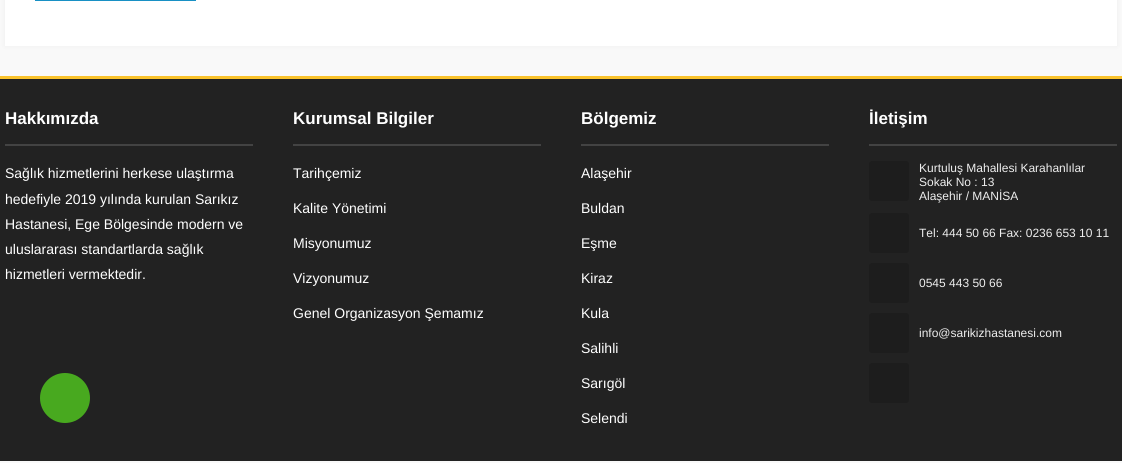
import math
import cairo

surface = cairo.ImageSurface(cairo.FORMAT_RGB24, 1122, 463)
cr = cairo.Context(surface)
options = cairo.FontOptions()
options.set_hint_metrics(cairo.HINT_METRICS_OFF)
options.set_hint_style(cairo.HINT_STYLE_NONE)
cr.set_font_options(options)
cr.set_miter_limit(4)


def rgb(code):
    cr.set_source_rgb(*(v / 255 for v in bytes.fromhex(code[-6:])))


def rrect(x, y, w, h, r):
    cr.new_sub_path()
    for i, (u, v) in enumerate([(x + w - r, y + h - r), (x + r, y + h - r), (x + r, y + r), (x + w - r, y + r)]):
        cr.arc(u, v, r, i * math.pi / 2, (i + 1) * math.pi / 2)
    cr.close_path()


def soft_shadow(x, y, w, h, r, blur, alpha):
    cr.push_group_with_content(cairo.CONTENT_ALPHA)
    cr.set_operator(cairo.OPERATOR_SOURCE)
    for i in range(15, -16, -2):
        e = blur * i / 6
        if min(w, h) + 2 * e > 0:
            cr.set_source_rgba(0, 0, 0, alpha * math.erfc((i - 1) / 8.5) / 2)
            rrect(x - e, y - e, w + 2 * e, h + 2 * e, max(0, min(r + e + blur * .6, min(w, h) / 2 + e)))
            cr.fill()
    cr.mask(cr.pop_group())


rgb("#f9f9f9")
cr.paint()
rgb("#000000")
soft_shadow(5, -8, 1112, 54, 0, 2.5, 0.05)
for x, y, w, h, color in [
    (5, 0, 1112, 46, "#ffffff"),
    (35, 0, 161, 1, "#1890c4"),
    (0, 79, 1122, 382, "#222222"),
    (0, 76, 1122, 3, "#fac32d"),
    (5, 144, 248, 2, "#434343"),
    (293, 144, 248, 2, "#434343"),
    (581, 144, 248, 2, "#434343"),
    (869, 144, 248, 2, "#434343"),
]:
    rgb(color)
    cr.rectangle(x, y, w, h)
    cr.fill()
rgb("#1d1d1d")
rrect(869, 161, 40, 40, 3)
cr.fill()
rrect(869, 213, 40, 40, 3)
cr.fill()
rrect(869, 263, 40, 40, 3)
cr.fill()
rrect(869, 313, 40, 40, 3)
cr.fill()
rrect(869, 363, 40, 40, 3)
cr.fill()
rgb("#48a91f")
cr.arc(65, 398, 25, 0, 2 * math.pi)
cr.fill()
cr.select_font_face("Liberation Sans", cairo.FONT_SLANT_NORMAL, cairo.FONT_WEIGHT_BOLD)
cr.set_font_size(17)
rgb("#ffffff")
cr.move_to(5, 124)
cr.show_text("Hakkımızda")
cr.select_font_face("Liberation Sans")
cr.set_font_size(14)
for x, y, s in [
    (5, 178, "Sağlık hizmetlerini herkese ulaştırma"),
    (5, 204, "hedefiyle 2019 yılında kurulan Sarıkız"),
    (5, 229, "Hastanesi, Ege Bölgesinde modern ve"),
    (5, 254, "uluslararası standartlarda sağlık"),
    (5, 279, "hizmetleri vermektedir."),
]:
    cr.move_to(x, y)
    cr.show_text(s)
cr.select_font_face("Liberation Sans", cairo.FONT_SLANT_NORMAL, cairo.FONT_WEIGHT_BOLD)
cr.set_font_size(17)
cr.move_to(293, 124)
cr.show_text("Kurumsal Bilgiler")
cr.select_font_face("Liberation Sans")
cr.set_font_size(14)
for x, y, s in [
    (293, 178, "Tarihçemiz"),
    (293, 213, "Kalite Yönetimi"),
    (293, 248, "Misyonumuz"),
    (293, 283, "Vizyonumuz"),
    (293, 318, "Genel Organizasyon Şemamız"),
]:
    cr.move_to(x, y)
    cr.show_text(s)
cr.select_font_face("Liberation Sans", cairo.FONT_SLANT_NORMAL, cairo.FONT_WEIGHT_BOLD)
cr.set_font_size(17)
cr.move_to(581, 124)
cr.show_text("Bölgemiz")
cr.select_font_face("Liberation Sans")
cr.set_font_size(14)
for x, y, s in [
    (581, 178, "Alaşehir"),
    (581, 213, "Buldan"),
    (581, 248, "Eşme"),
    (581, 283, "Kiraz"),
    (581, 318, "Kula"),
    (581, 353, "Salihli"),
    (581, 388, "Sarıgöl"),
    (581, 423, "Selendi"),
]:
    cr.move_to(x, y)
    cr.show_text(s)
cr.select_font_face("Liberation Sans", cairo.FONT_SLANT_NORMAL, cairo.FONT_WEIGHT_BOLD)
cr.set_font_size(17)
cr.move_to(869, 124)
cr.show_text("İletişim")
cr.select_font_face("Liberation Sans")
cr.set_font_size(12)
rgb("#eeeeee")
for x, y, s in [
    (919, 172, "Kurtuluş Mahallesi Karahanlılar"),
    (919, 186, "Sokak No : 13"),
    (919, 200, "Alaşehir / MANİSA"),
    (919, 237, "Tel: 444 50 66 Fax: 0236 653 10 11"),
    (919, 287, "0545 443 50 66"),
    (919, 337, "info@sarikizhastanesi.com"),
]:
    cr.move_to(x, y)
    cr.show_text(s)
surface.write_to_png("page.png")
